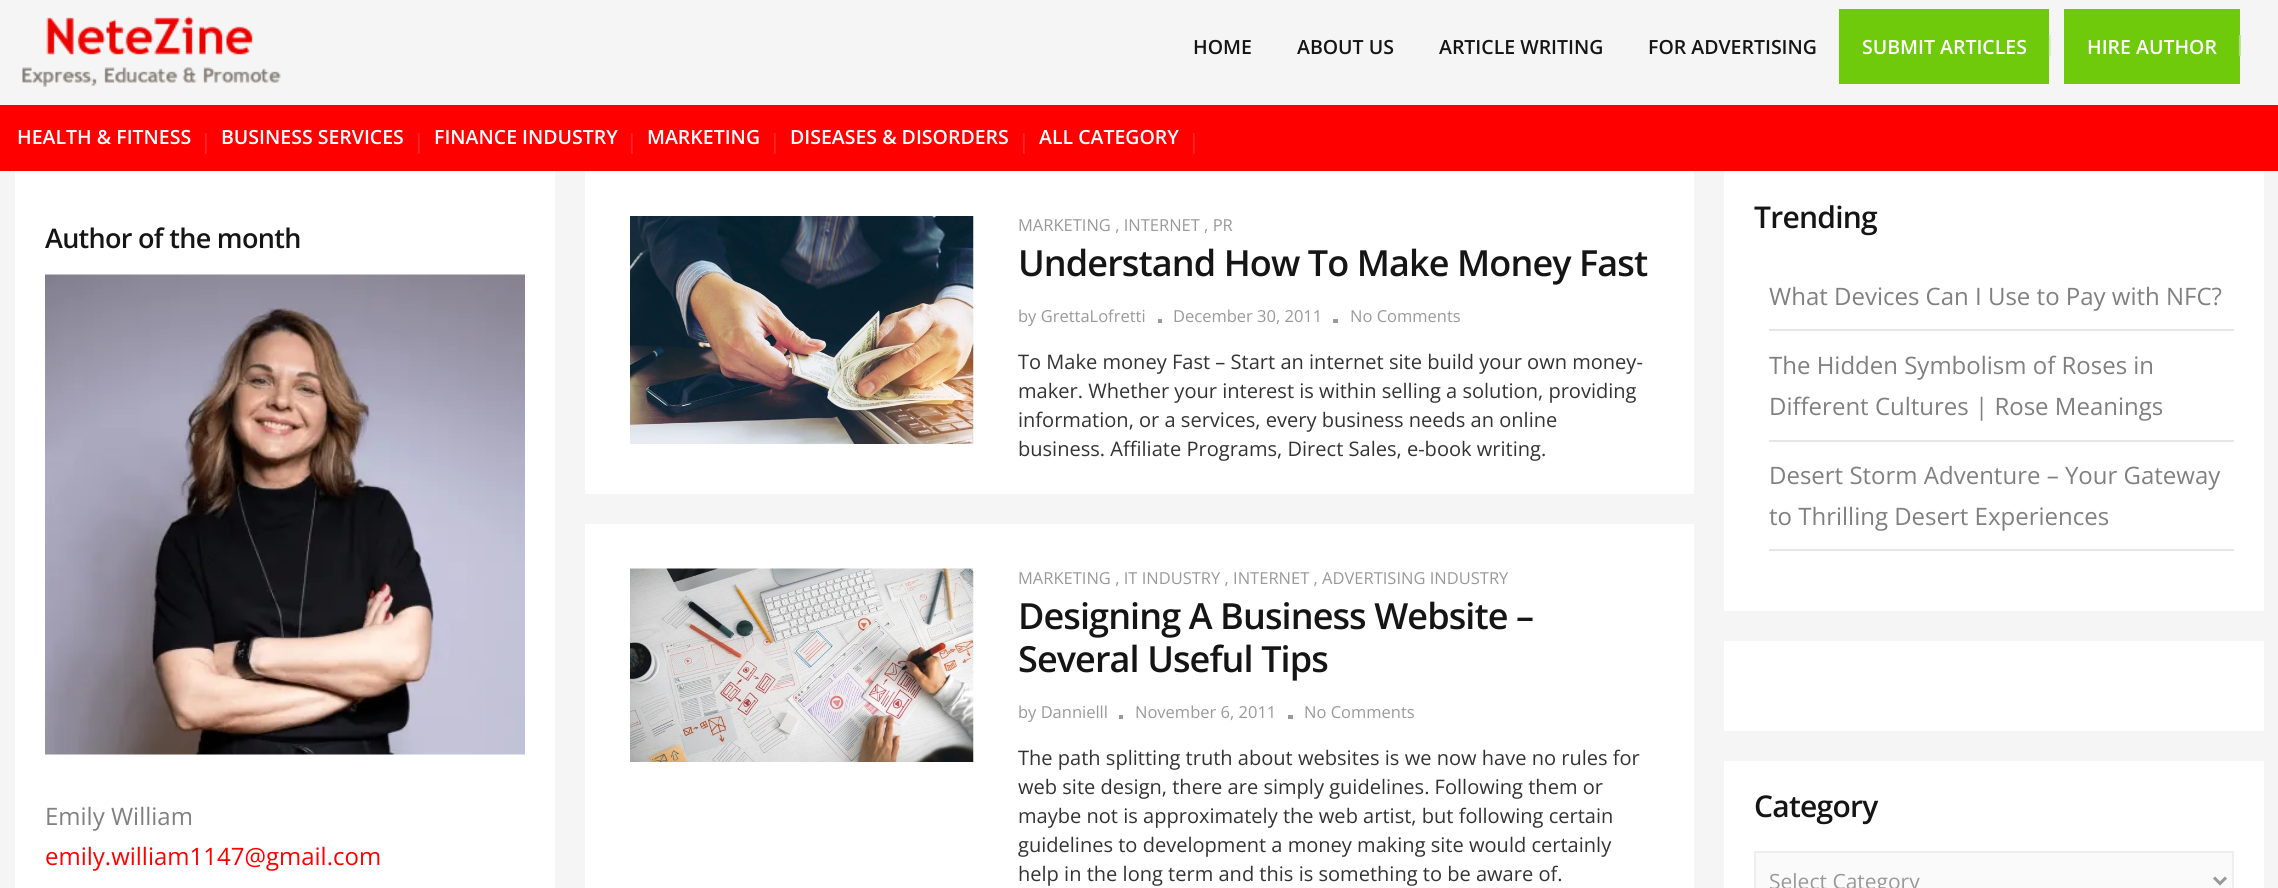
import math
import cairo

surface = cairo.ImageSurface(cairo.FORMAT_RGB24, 2278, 888)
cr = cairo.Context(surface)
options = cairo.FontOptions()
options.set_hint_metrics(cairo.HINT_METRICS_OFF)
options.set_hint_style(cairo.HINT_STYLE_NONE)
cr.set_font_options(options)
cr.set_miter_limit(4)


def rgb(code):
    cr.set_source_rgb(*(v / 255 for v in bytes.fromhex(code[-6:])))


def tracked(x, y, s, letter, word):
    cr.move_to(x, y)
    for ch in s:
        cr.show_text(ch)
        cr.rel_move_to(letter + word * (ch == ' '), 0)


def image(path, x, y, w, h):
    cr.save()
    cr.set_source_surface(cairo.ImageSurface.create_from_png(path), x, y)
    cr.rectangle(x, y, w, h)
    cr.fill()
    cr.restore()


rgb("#f5f5f5")
cr.paint()
image("img/1.png", 22, 16, 259, 71)
for x, y, w, h, color in [
    (1839, 9, 210, 75, "#6eca0a"),
    (2064, 9, 176, 75, "#6eca0a"),
    (0, 105, 2278, 66, "#ff0000"),
    (15, 171, 540, 717, "#ffffff"),
]:
    rgb(color)
    cr.rectangle(x, y, w, h)
    cr.fill()
image("img/2.png", 45, 274, 480, 481)
cr.rectangle(585, 171, 1109, 323)
cr.fill()
image("img/3.png", 630, 216, 344, 228)
for x, y, w, h, color in [
    (1158, 319, 4, 4, "#999999"),
    (1333, 319, 5, 4, "#999999"),
    (585, 524, 1109, 364, "#ffffff"),
]:
    rgb(color)
    cr.rectangle(x, y, w, h)
    cr.fill()
image("img/4.png", 630, 568, 344, 194)
for x, y, w, h, color in [
    (1119, 715, 4, 4, "#999999"),
    (1288, 715, 5, 4, "#999999"),
    (1724, 171, 540, 440, "#ffffff"),
    (1769, 329, 465, 2, "#e6e6e6"),
    (1769, 440, 465, 2, "#e6e6e6"),
    (1769, 549, 465, 2, "#e6e6e6"),
    (1724, 641, 540, 90, "#ffffff"),
    (1724, 761, 540, 127, "#ffffff"),
]:
    rgb(color)
    cr.rectangle(x, y, w, h)
    cr.fill()
rgb("#fafafa")
cr.rectangle(1755, 852, 478, 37)
cr.fill_preserve()
rgb("#eeeeee")
cr.stroke()
cr.new_path()
cr.move_to(2214, 877.5)
cr.line_to(2220, 883.5)
cr.line_to(2226, 877.5)
rgb("#999999")
cr.set_line_width(3)
cr.stroke()
cr.select_font_face("Open Sans SemiBold")
cr.set_font_size(19.5)
rgb("#151515")
for x, y, s in [
    (1193, 54, "HOME"),
    (1297, 54, "ABOUT US"),
    (1439, 54, "ARTICLE WRITING"),
    (1648, 54, "FOR ADVERTISING"),
]:
    cr.move_to(x, y)
    cr.show_text(s)
rgb("#ffffff")
cr.move_to(1862, 54)
cr.show_text("SUBMIT ARTICLES")
cr.set_font_size(21)
rgb("#d1eab5")
cr.move_to(2044, 51)
cr.show_text("|")
cr.set_font_size(19.5)
rgb("#ffffff")
cr.move_to(2087, 54)
cr.show_text("HIRE AUTHOR")
cr.set_font_size(21)
rgb("#a9de70")
cr.move_to(2234, 51)
cr.show_text("|")
cr.set_font_size(19.5)
rgb("#ffffff")
cr.move_to(17, 144)
cr.show_text("HEALTH & FITNESS")
cr.set_font_size(21)
rgb("#ff2626")
cr.move_to(200, 149)
cr.show_text("|")
cr.set_font_size(19.5)
rgb("#ffffff")
cr.move_to(221, 144)
cr.show_text("BUSINESS SERVICES")
cr.set_font_size(21)
rgb("#ff2626")
cr.move_to(413, 149)
cr.show_text("|")
cr.set_font_size(19.5)
rgb("#ffffff")
cr.move_to(434, 144)
cr.show_text("FINANCE INDUSTRY")
cr.set_font_size(21)
rgb("#ff2626")
cr.move_to(626, 149)
cr.show_text("|")
cr.set_font_size(19.5)
rgb("#ffffff")
cr.move_to(647, 144)
cr.show_text("MARKETING")
cr.set_font_size(21)
rgb("#ff2626")
cr.move_to(769, 149)
cr.show_text("|")
cr.set_font_size(19.5)
rgb("#ffffff")
cr.move_to(790, 144)
cr.show_text("DISEASES & DISORDERS")
cr.set_font_size(21)
rgb("#ff2626")
cr.move_to(1018, 149)
cr.show_text("|")
cr.set_font_size(19.5)
rgb("#ffffff")
cr.move_to(1039, 144)
cr.show_text("ALL CATEGORY")
cr.set_font_size(21)
rgb("#ff2626")
cr.move_to(1188, 149)
cr.show_text("|")
cr.set_font_size(27)
rgb("#151515")
tracked(45, 248, "Author of the month", -0.7, 0)
cr.select_font_face("Open Sans")
cr.set_font_size(24)
rgb("#808080")
cr.move_to(45, 825)
cr.show_text("Emily William")
rgb("#ff0000")
cr.move_to(45, 865)
cr.show_text("emily.william1147@gmail.com")
cr.set_font_size(16.5)
rgb("#999999")
cr.move_to(1018, 231)
cr.show_text("MARKETING , INTERNET , PR")
cr.select_font_face("Open Sans SemiBold")
cr.set_font_size(36)
rgb("#151515")
tracked(1018, 276, "Understand How To Make Money Fast", -0.9, 0)
cr.select_font_face("Open Sans")
cr.set_font_size(16.5)
rgb("#999999")
for x, y, s in [
    (1018, 322, "by GrettaLofretti"),
    (1173, 322, "December 30, 2011"),
    (1350, 322, "No Comments"),
]:
    cr.move_to(x, y)
    cr.show_text(s)
cr.set_font_size(20.05)
rgb("#333333")
for x, y, s in [
    (1018, 369, "To Make money Fast – Start an internet site build your own money-"),
    (1018, 398, "maker. Whether your interest is within selling a solution, providing"),
    (1018, 427, "information, or a services, every business needs an online"),
    (1018, 456, "business. Affiliate Programs, Direct Sales, e-book writing."),
]:
    cr.move_to(x, y)
    cr.show_text(s)
cr.set_font_size(16.5)
rgb("#999999")
cr.move_to(1018, 584)
cr.show_text("MARKETING , IT INDUSTRY , INTERNET , ADVERTISING INDUSTRY")
cr.select_font_face("Open Sans SemiBold")
cr.set_font_size(36)
rgb("#151515")
tracked(1018, 629, "Designing A Business Website –", -0.9, 0)
tracked(1018, 672, "Several Useful Tips", -0.9, 0)
cr.select_font_face("Open Sans")
cr.set_font_size(16.5)
rgb("#999999")
for x, y, s in [
    (1018, 718, "by Dannielll"),
    (1135, 718, "November 6, 2011"),
    (1304, 718, "No Comments"),
]:
    cr.move_to(x, y)
    cr.show_text(s)
cr.set_font_size(20.05)
rgb("#333333")
for x, y, s in [
    (1018, 765, "The path splitting truth about websites is we now have no rules for"),
    (1018, 794, "web site design, there are simply guidelines. Following them or"),
    (1018, 823, "maybe not is approximately the web artist, but following certain"),
    (1018, 852, "guidelines to development a money making site would certainly"),
    (1018, 881, "help in the long term and this is something to be aware of."),
]:
    cr.move_to(x, y)
    cr.show_text(s)
cr.select_font_face("Open Sans SemiBold")
cr.set_font_size(30)
rgb("#151515")
tracked(1754, 228, "Trending", -0.75, 0)
cr.select_font_face("Open Sans")
cr.set_font_size(24)
rgb("#808080")
for x, y, s in [
    (1769, 305, "What Devices Can I Use to Pay with NFC?"),
    (1769, 374, "The Hidden Symbolism of Roses in"),
    (1769, 415, "Different Cultures | Rose Meanings"),
    (1769, 484, "Desert Storm Adventure – Your Gateway"),
    (1769, 525, "to Thrilling Desert Experiences"),
]:
    cr.move_to(x, y)
    cr.show_text(s)
cr.select_font_face("Open Sans SemiBold")
cr.set_font_size(30)
rgb("#151515")
tracked(1754, 817, "Category", -0.75, 0)
cr.select_font_face("Open Sans")
cr.set_font_size(21)
rgb("#999999")
cr.move_to(1769, 889)
cr.show_text("Select Category")
surface.write_to_png("page.png")
